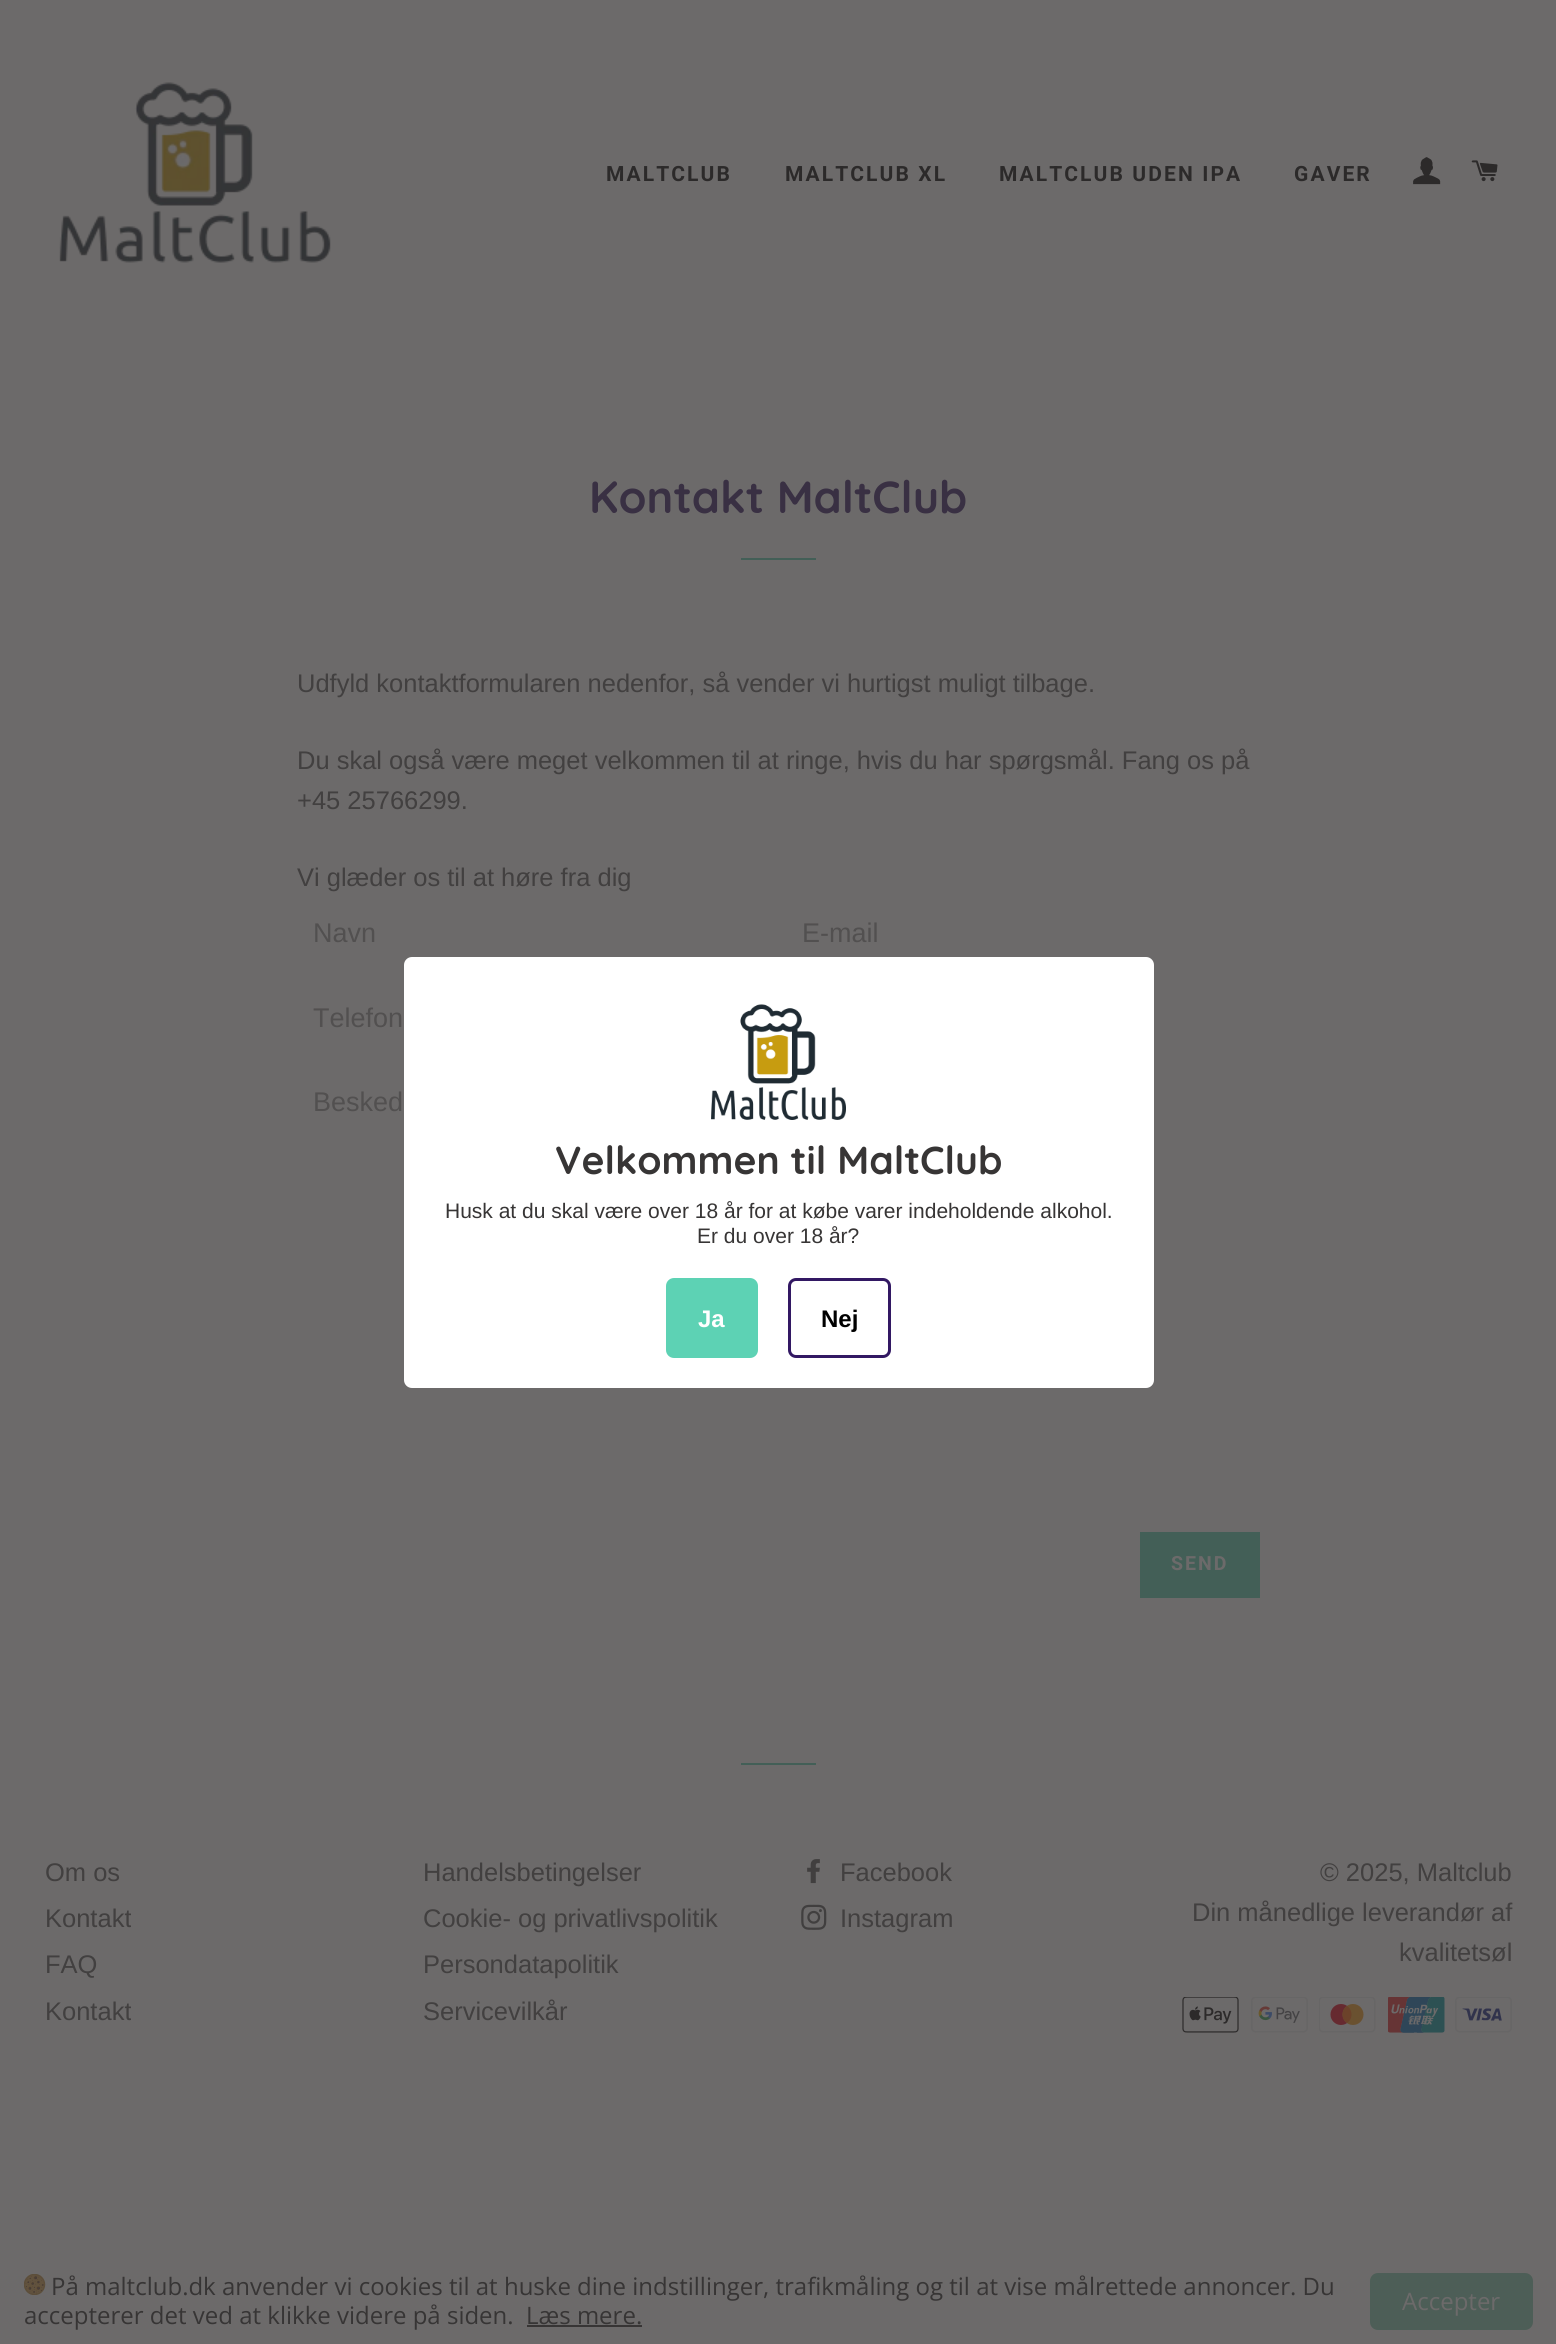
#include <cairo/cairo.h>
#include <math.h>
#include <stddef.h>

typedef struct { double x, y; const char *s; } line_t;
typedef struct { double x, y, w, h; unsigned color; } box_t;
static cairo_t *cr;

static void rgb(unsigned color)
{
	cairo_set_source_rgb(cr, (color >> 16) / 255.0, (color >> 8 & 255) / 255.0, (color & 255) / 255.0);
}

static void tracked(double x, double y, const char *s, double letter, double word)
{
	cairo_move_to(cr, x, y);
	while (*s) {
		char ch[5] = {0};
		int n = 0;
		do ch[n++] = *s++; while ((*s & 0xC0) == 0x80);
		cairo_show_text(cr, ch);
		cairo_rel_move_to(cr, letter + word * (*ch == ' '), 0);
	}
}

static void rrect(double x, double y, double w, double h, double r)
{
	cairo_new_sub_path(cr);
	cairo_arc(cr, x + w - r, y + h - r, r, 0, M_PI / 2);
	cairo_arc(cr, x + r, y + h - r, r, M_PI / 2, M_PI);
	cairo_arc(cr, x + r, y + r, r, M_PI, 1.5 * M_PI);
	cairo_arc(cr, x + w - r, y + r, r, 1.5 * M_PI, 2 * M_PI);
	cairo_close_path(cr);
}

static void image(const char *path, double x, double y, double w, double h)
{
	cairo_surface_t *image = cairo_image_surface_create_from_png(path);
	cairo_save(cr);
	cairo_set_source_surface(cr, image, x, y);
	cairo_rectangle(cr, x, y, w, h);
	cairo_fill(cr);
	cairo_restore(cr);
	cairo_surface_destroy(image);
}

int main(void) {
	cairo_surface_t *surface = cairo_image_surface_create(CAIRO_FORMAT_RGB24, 1556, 2344);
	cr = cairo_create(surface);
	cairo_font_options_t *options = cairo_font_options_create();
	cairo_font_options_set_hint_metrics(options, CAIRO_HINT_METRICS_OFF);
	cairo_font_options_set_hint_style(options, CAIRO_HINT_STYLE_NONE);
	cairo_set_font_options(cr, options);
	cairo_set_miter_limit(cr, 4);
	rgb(0x6c6a6a);
	cairo_paint(cr);
	image("img/1.png", 59, 82, 272, 181);
	image("img/2.png", 1413, 157, 28, 28);
	image("img/3.png", 1471, 160, 27, 22);
	{
		static const box_t items[] = {
			{741, 558, 75, 2, 0x435f57},
			{1140, 1532, 120, 66, 0x435f57},
			{741, 1763, 75, 2, 0x435f57},
		};
		for (size_t i = 0; i < sizeof items / sizeof *items; i++) {
			rgb(items[i].color);
			cairo_rectangle(cr, items[i].x, items[i].y, items[i].w, items[i].h);
			cairo_fill(cr);
		}
	}
	image("img/4.png", 807, 1859, 13, 25);
	image("img/5.png", 801, 1904, 26, 26);
	image("img/6.png", 1182, 1997, 57, 36);
	image("img/7.png", 1251, 1997, 57, 36);
	image("img/8.png", 1319, 1997, 57, 36);
	image("img/9.png", 1388, 1997, 57, 36);
	image("img/10.png", 1455, 1997, 57, 36);
	rgb(0xffffff);
	rrect(404, 957, 750, 431, 8);
	cairo_fill(cr);
	image("img/11.png", 711, 1004, 135, 116);
	rgb(0x5dd2b4);
	rrect(667.5, 1279.5, 89, 77, 6.5);
	cairo_fill_preserve(cr);
	cairo_set_line_width(cr, 3);
	cairo_stroke(cr);
	rrect(789.5, 1279.5, 100, 77, 6.5);
	rgb(0x321863);
	cairo_stroke(cr);
	image("img/12.png", 24, 2274, 22, 21);
	rgb(0x373535);
	cairo_rectangle(cr, 527, 2325, 115, 2);
	cairo_fill(cr);
	rgb(0x4d5e57);
	rrect(1370, 2273, 163, 57, 8);
	cairo_fill(cr);
	cairo_select_font_face(cr, "Roboto", CAIRO_FONT_SLANT_NORMAL, CAIRO_FONT_WEIGHT_BOLD);
	cairo_set_font_size(cr, 21);
	rgb(0x2c2a2a);
	{
		static const line_t items[] = {
			{606, 181, "MALTCLUB"},
			{785, 181, "MALTCLUB XL"},
			{999, 181, "MALTCLUB UDEN IPA"},
			{1294, 181, "GAVER"},
		};
		for (size_t i = 0; i < sizeof items / sizeof *items; i++) {
			tracked(items[i].x, items[i].y, items[i].s, 2.1, 0);
		}
	}
	cairo_select_font_face(cr, "Quicksand", CAIRO_FONT_SLANT_NORMAL, CAIRO_FONT_WEIGHT_BOLD);
	cairo_set_font_size(cr, 45);
	rgb(0x393043);
	cairo_move_to(cr, 589, 513);
	cairo_show_text(cr, "Kontakt MaltClub");
	cairo_select_font_face(cr, "Liberation Sans", CAIRO_FONT_SLANT_NORMAL, CAIRO_FONT_WEIGHT_NORMAL);
	cairo_set_font_size(cr, 25.5);
	rgb(0x424040);
	{
		static const line_t items[] = {
			{297, 692, "Udfyld kontaktformularen nedenfor, så vender vi hurtigst muligt tilbage."},
			{297, 769, "Du skal også være meget velkommen til at ringe, hvis du har spørgsmål. Fang os på"},
			{297, 809, "+45 25766299."},
			{297, 886, "Vi glæder os til at høre fra dig"},
		};
		for (size_t i = 0; i < sizeof items / sizeof *items; i++) {
			cairo_move_to(cr, items[i].x, items[i].y);
			cairo_show_text(cr, items[i].s);
		}
	}
	cairo_set_font_size(cr, 27);
	rgb(0x525050);
	{
		static const line_t items[] = {
			{313, 942, "Navn"},
			{802, 942, "E-mail"},
			{313, 1027, "Telefon"},
			{313, 1111, "Besked"},
		};
		for (size_t i = 0; i < sizeof items / sizeof *items; i++) {
			cairo_move_to(cr, items[i].x, items[i].y);
			cairo_show_text(cr, items[i].s);
		}
	}
	cairo_select_font_face(cr, "Roboto", CAIRO_FONT_SLANT_NORMAL, CAIRO_FONT_WEIGHT_BOLD);
	cairo_set_font_size(cr, 19.5);
	rgb(0x6c6a6a);
	tracked(1171, 1570, "SEND", 2, 0);
	cairo_select_font_face(cr, "Liberation Sans", CAIRO_FONT_SLANT_NORMAL, CAIRO_FONT_WEIGHT_NORMAL);
	cairo_set_font_size(cr, 25.5);
	rgb(0x424040);
	{
		static const line_t items[] = {
			{45, 1881, "Om os"},
			{45, 1927, "Kontakt"},
			{45, 1973, "FAQ"},
			{45, 2020, "Kontakt"},
			{423, 1881, "Handelsbetingelser"},
			{423, 1927, "Cookie- og privatlivspolitik"},
			{423, 1973, "Persondatapolitik"},
			{423, 2020, "Servicevilkår"},
			{840, 1881, "Facebook"},
			{840, 1927, "Instagram"},
			{1320, 1881, "© 2025, Maltclub"},
			{1192, 1921, "Din månedlige leverandør af"},
			{1399, 1961, "kvalitetsøl"},
		};
		for (size_t i = 0; i < sizeof items / sizeof *items; i++) {
			cairo_move_to(cr, items[i].x, items[i].y);
			cairo_show_text(cr, items[i].s);
		}
	}
	cairo_select_font_face(cr, "Quicksand", CAIRO_FONT_SLANT_NORMAL, CAIRO_FONT_WEIGHT_BOLD);
	cairo_set_font_size(cr, 39);
	rgb(0x373535);
	cairo_move_to(cr, 555, 1174);
	cairo_show_text(cr, "Velkommen til MaltClub");
	cairo_select_font_face(cr, "Liberation Sans", CAIRO_FONT_SLANT_NORMAL, CAIRO_FONT_WEIGHT_NORMAL);
	cairo_set_font_size(cr, 21);
	cairo_move_to(cr, 445, 1218);
	cairo_show_text(cr, "Husk at du skal være over 18 år for at købe varer indeholdende alkohol.");
	cairo_move_to(cr, 697, 1243);
	cairo_show_text(cr, "Er du over 18 år?");
	cairo_select_font_face(cr, "Liberation Sans", CAIRO_FONT_SLANT_NORMAL, CAIRO_FONT_WEIGHT_BOLD);
	cairo_set_font_size(cr, 24);
	rgb(0xffffff);
	cairo_move_to(cr, 698, 1327);
	cairo_show_text(cr, "Ja");
	rgb(0x000000);
	cairo_move_to(cr, 821, 1327);
	cairo_show_text(cr, "Nej");
	cairo_select_font_face(cr, "Open Sans", CAIRO_FONT_SLANT_NORMAL, CAIRO_FONT_WEIGHT_NORMAL);
	rgb(0x373535);
	{
		static const line_t items[] = {
			{51, 2295, "På maltclub.dk anvender vi cookies til at huske dine indstillinger, trafikmåling og til at vise målrettede annoncer. Du"},
			{24, 2324, "accepterer det ved at klikke videre på siden."},
			{526, 2324, "Læs mere."},
		};
		for (size_t i = 0; i < sizeof items / sizeof *items; i++) {
			cairo_move_to(cr, items[i].x, items[i].y);
			cairo_show_text(cr, items[i].s);
		}
	}
	rgb(0x6c6a6a);
	cairo_move_to(cr, 1402, 2310);
	cairo_show_text(cr, "Accepter");
	cairo_surface_write_to_png(surface, "page.png");
	cairo_font_options_destroy(options);
	cairo_destroy(cr);
	cairo_surface_destroy(surface);
	return 0;
}
